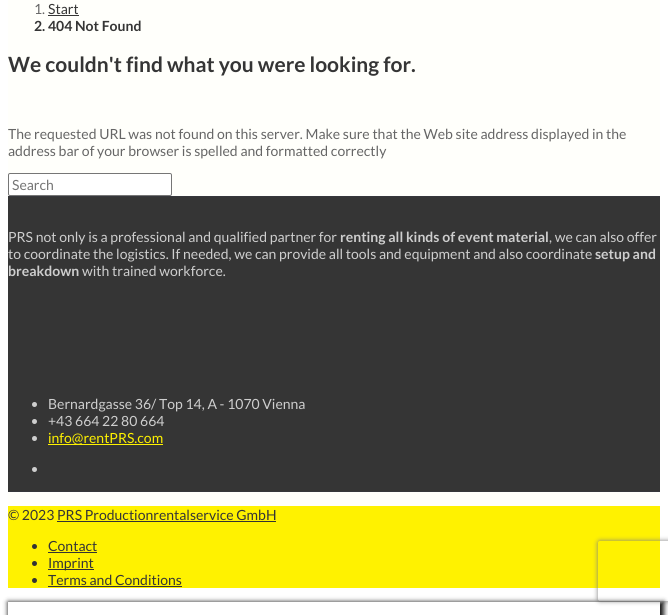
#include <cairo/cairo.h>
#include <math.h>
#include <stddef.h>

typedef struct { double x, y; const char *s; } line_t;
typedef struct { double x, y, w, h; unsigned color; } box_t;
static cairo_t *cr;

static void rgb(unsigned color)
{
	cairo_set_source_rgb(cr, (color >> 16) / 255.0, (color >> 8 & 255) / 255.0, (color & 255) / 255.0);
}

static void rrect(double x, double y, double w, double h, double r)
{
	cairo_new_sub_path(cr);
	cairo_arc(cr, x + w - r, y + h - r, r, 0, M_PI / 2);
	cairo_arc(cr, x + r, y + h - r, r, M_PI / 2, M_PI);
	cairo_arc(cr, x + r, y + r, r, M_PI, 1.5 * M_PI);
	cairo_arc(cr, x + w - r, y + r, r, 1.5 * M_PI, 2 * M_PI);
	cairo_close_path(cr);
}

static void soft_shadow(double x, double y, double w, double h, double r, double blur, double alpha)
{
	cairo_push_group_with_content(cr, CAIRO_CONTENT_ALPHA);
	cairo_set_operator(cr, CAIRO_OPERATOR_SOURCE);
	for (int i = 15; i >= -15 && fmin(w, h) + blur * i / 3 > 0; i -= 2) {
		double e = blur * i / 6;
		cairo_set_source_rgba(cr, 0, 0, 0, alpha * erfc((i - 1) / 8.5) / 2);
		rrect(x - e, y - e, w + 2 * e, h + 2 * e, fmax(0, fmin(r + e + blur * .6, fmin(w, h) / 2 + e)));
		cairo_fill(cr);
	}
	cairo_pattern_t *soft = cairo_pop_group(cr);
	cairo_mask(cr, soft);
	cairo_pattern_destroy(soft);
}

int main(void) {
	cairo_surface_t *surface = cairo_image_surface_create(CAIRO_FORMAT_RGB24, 668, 615);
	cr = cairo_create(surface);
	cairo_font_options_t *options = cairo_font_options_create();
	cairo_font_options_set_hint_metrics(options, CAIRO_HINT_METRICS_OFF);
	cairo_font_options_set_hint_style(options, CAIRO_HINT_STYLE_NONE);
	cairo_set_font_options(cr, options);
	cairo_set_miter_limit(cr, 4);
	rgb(0xffffff);
	cairo_paint(cr);
	rgb(0xfffffb);
	cairo_rectangle(cr, 8, 0, 652, 506);
	cairo_fill(cr);
	rgb(0x353535);
	cairo_rectangle(cr, 48, 15, 31, 1);
	cairo_fill(cr);
	rgb(0xffffff);
	rrect(8.5, 173.5, 163, 22, 1.5);
	cairo_fill_preserve(cr);
	rgb(0x767676);
	cairo_set_line_width(cr, 1);
	cairo_stroke(cr);
	{
		static const box_t items[] = {
			{8, 197, 652, 294, 0x353535},
			{8, 196, 652, 1, 0x36373c},
			{8, 491, 652, 1, 0x36373c},
		};
		for (size_t i = 0; i < sizeof items / sizeof *items; i++) {
			rgb(items[i].color);
			cairo_rectangle(cr, items[i].x, items[i].y, items[i].w, items[i].h);
			cairo_fill(cr);
		}
	}
	rgb(0xcecece);
	cairo_arc(cr, 34.5, 404.5, 2.5, 0, 2 * M_PI);
	cairo_fill(cr);
	cairo_arc(cr, 34.5, 421.5, 2.5, 0, 2 * M_PI);
	cairo_fill(cr);
	cairo_arc(cr, 34.5, 438.5, 2.5, 0, 2 * M_PI);
	cairo_fill(cr);
	rgb(0xfff200);
	cairo_rectangle(cr, 48, 444, 115, 1);
	cairo_fill(cr);
	rgb(0xcecece);
	cairo_arc(cr, 34.5, 469.5, 2.5, 0, 2 * M_PI);
	cairo_fill(cr);
	rgb(0xfff200);
	cairo_rectangle(cr, 8, 506, 652, 82);
	cairo_fill(cr);
	rgb(0x333333);
	cairo_rectangle(cr, 57, 521, 219, 1);
	cairo_fill(cr);
	cairo_arc(cr, 34.5, 546.5, 2.5, 0, 2 * M_PI);
	cairo_fill(cr);
	cairo_rectangle(cr, 48, 552, 49, 1);
	cairo_fill(cr);
	cairo_arc(cr, 34.5, 563.5, 2.5, 0, 2 * M_PI);
	cairo_fill(cr);
	cairo_rectangle(cr, 48, 569, 46, 1);
	cairo_fill(cr);
	cairo_arc(cr, 34.5, 580.5, 2.5, 0, 2 * M_PI);
	cairo_fill(cr);
	cairo_rectangle(cr, 48, 586, 134, 1);
	cairo_fill(cr);
	cairo_save(cr);
	cairo_set_fill_rule(cr, CAIRO_FILL_RULE_EVEN_ODD);
	cairo_new_path(cr);
	cairo_move_to(cr, 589, 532);
	cairo_line_to(cr, 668, 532);
	cairo_line_to(cr, 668, 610);
	cairo_line_to(cr, 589, 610);
	cairo_close_path(cr);
	cairo_move_to(cr, 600, 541);
	cairo_line_to(cr, 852, 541);
	cairo_curve_to(cr, 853, 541, 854, 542, 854, 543);
	cairo_line_to(cr, 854, 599);
	cairo_curve_to(cr, 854, 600, 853, 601, 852, 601);
	cairo_line_to(cr, 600, 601);
	cairo_curve_to(cr, 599, 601, 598, 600, 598, 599);
	cairo_line_to(cr, 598, 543);
	cairo_curve_to(cr, 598, 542, 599, 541, 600, 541);
	cairo_close_path(cr);
	cairo_clip(cr);
	rgb(0x808080);
	soft_shadow(598, 541, 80, 60, 2, 2.5, 1);
	cairo_restore(cr);
	cairo_save(cr);
	cairo_set_fill_rule(cr, CAIRO_FILL_RULE_EVEN_ODD);
	cairo_new_path(cr);
	cairo_move_to(cr, 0, 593);
	cairo_line_to(cr, 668, 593);
	cairo_line_to(cr, 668, 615);
	cairo_line_to(cr, 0, 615);
	cairo_close_path(cr);
	cairo_move_to(cr, 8, 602);
	cairo_line_to(cr, 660, 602);
	cairo_line_to(cr, 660, 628);
	cairo_line_to(cr, 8, 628);
	cairo_close_path(cr);
	cairo_clip(cr);
	rgb(0x161616);
	soft_shadow(8, 602, 656, 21, 0, 2.5, 1);
	cairo_restore(cr);
	cairo_select_font_face(cr, "Lato", CAIRO_FONT_SLANT_NORMAL, CAIRO_FONT_WEIGHT_NORMAL);
	cairo_set_font_size(cr, 14);
	rgb(0x666666);
	cairo_move_to(cr, 34, 14);
	cairo_show_text(cr, "1.");
	rgb(0x353535);
	cairo_move_to(cr, 48, 14);
	cairo_show_text(cr, "Start");
	cairo_select_font_face(cr, "Lato", CAIRO_FONT_SLANT_NORMAL, CAIRO_FONT_WEIGHT_BOLD);
	cairo_move_to(cr, 34, 31);
	cairo_show_text(cr, "2. 404 Not Found");
	cairo_set_font_size(cr, 21);
	cairo_move_to(cr, 8, 72);
	cairo_show_text(cr, "We couldn't find what you were looking for.");
	cairo_select_font_face(cr, "Lato", CAIRO_FONT_SLANT_NORMAL, CAIRO_FONT_WEIGHT_NORMAL);
	cairo_set_font_size(cr, 14);
	rgb(0x666666);
	cairo_move_to(cr, 8, 139);
	cairo_show_text(cr, "The requested URL was not found on this server. Make sure that the Web site address displayed in the");
	cairo_move_to(cr, 8, 156);
	cairo_show_text(cr, "address bar of your browser is spelled and formatted correctly");
	rgb(0x757575);
	cairo_move_to(cr, 12, 190);
	cairo_show_text(cr, "Search");
	rgb(0xcecece);
	cairo_move_to(cr, 8, 242);
	cairo_show_text(cr, "PRS not only is a professional and qualified partner for");
	cairo_select_font_face(cr, "Lato", CAIRO_FONT_SLANT_NORMAL, CAIRO_FONT_WEIGHT_BOLD);
	cairo_move_to(cr, 340, 242);
	cairo_show_text(cr, "renting all kinds of event material");
	cairo_select_font_face(cr, "Lato", CAIRO_FONT_SLANT_NORMAL, CAIRO_FONT_WEIGHT_NORMAL);
	cairo_move_to(cr, 549, 242);
	cairo_show_text(cr, ", we can also offer");
	cairo_move_to(cr, 8, 259);
	cairo_show_text(cr, "to coordinate the logistics. If needed, we can provide all tools and equipment and also coordinate");
	cairo_select_font_face(cr, "Lato", CAIRO_FONT_SLANT_NORMAL, CAIRO_FONT_WEIGHT_BOLD);
	cairo_move_to(cr, 595, 259);
	cairo_show_text(cr, "setup and");
	cairo_move_to(cr, 8, 276);
	cairo_show_text(cr, "breakdown");
	cairo_select_font_face(cr, "Lato", CAIRO_FONT_SLANT_NORMAL, CAIRO_FONT_WEIGHT_NORMAL);
	{
		static const line_t items[] = {
			{82, 276, "with trained workforce."},
			{48, 409, "Bernardgasse 36/ Top 14, A - 1070 Vienna"},
			{48, 426, "+43 664 22 80 664"},
		};
		for (size_t i = 0; i < sizeof items / sizeof *items; i++) {
			cairo_move_to(cr, items[i].x, items[i].y);
			cairo_show_text(cr, items[i].s);
		}
	}
	rgb(0xfff200);
	cairo_move_to(cr, 48, 443);
	cairo_show_text(cr, "info@rentPRS.com");
	rgb(0x353535);
	{
		static const line_t items[] = {
			{8, 520, "© 2023 PRS Productionrentalservice GmbH"},
			{48, 551, "Contact"},
			{48, 568, "Imprint"},
			{48, 585, "Terms and Conditions"},
		};
		for (size_t i = 0; i < sizeof items / sizeof *items; i++) {
			cairo_move_to(cr, items[i].x, items[i].y);
			cairo_show_text(cr, items[i].s);
		}
	}
	cairo_surface_write_to_png(surface, "page.png");
	cairo_font_options_destroy(options);
	cairo_destroy(cr);
	cairo_surface_destroy(surface);
	return 0;
}
